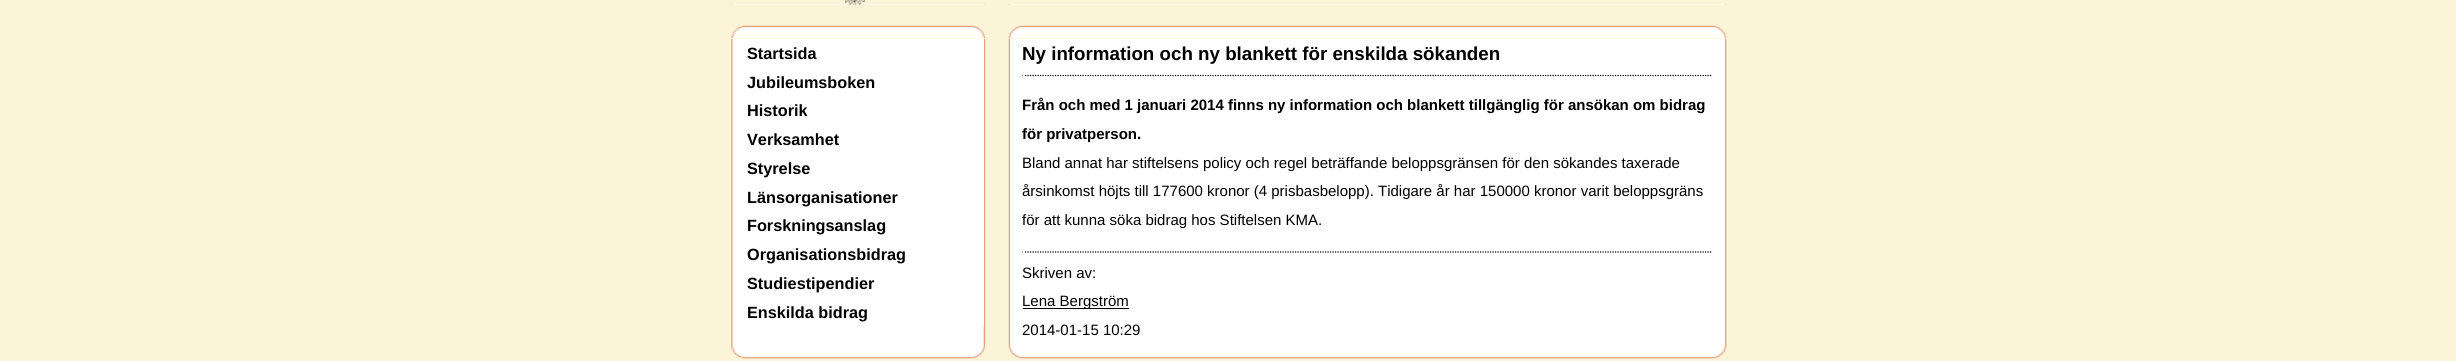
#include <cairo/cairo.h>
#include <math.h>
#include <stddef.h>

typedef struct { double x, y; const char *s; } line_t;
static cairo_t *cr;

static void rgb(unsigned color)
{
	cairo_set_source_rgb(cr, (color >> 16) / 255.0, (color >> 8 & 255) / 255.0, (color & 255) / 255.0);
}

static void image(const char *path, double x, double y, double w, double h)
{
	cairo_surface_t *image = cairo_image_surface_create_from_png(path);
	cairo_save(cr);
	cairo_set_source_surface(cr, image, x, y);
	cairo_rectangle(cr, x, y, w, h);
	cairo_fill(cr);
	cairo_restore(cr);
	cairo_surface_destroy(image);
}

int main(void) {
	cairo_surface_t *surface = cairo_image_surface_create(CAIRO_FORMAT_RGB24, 2456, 361);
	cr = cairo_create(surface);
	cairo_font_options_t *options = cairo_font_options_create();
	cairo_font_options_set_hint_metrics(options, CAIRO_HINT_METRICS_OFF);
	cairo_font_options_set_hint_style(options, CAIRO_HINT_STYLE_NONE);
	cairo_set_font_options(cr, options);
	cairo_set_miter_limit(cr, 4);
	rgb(0xfcf4d8);
	cairo_paint(cr);
	image("img/1.png", 844, 0, 22, 5);
	image("img/3.png", 731, 4, 996, 341);
	image("img/2.png", 731, 4, 996, 1);
	rgb(0xfcf4d8);
	cairo_rectangle(cr, 731, 5, 996, 34);
	cairo_fill(cr);
	image("img/4.png", 731, 25, 996, 14);
	rgb(0xffffff);
	cairo_rectangle(cr, 983, 39, 1, 287);
	cairo_fill(cr);
	cairo_new_path(cr);
	cairo_move_to(cr, 1022.5, 75.5);
	cairo_line_to(cr, 1712.5, 75.5);
	rgb(0x000000);
	cairo_set_line_width(cr, 1.2);
	cairo_set_dash(cr, (double[]){1.25, 1.25}, 2, 0);
	cairo_stroke(cr);
	rgb(0xffffff);
	cairo_rectangle(cr, 1023, 74, 1, 3);
	cairo_fill(cr);
	cairo_new_path(cr);
	cairo_move_to(cr, 1022.5, 252);
	cairo_line_to(cr, 1712.5, 252);
	rgb(0x000000);
	cairo_stroke(cr);
	rgb(0xffffff);
	cairo_rectangle(cr, 1023, 250, 1, 3);
	cairo_fill(cr);
	rgb(0x000000);
	cairo_rectangle(cr, 1023, 308, 106, 1);
	cairo_fill(cr);
	image("img/5.png", 731, 345, 996, 14);
	cairo_select_font_face(cr, "Liberation Sans", CAIRO_FONT_SLANT_NORMAL, CAIRO_FONT_WEIGHT_BOLD);
	cairo_set_font_size(cr, 16.25);
	{
		static const line_t items[] = {
			{747, 59, "Startsida"},
			{747, 88, "Jubileumsboken"},
			{747, 116, "Historik"},
			{747, 145, "Verksamhet"},
			{747, 174, "Styrelse"},
			{747, 203, "Länsorganisationer"},
			{747, 231, "Forskningsanslag"},
			{747, 260, "Organisationsbidrag"},
			{747, 289, "Studiestipendier"},
			{747, 318, "Enskilda bidrag"},
		};
		for (size_t i = 0; i < sizeof items / sizeof *items; i++) {
			cairo_move_to(cr, items[i].x, items[i].y);
			cairo_show_text(cr, items[i].s);
		}
	}
	cairo_set_font_size(cr, 18.75);
	cairo_move_to(cr, 1022, 60);
	cairo_show_text(cr, "Ny information och ny blankett för enskilda sökanden");
	cairo_set_font_size(cr, 15);
	cairo_move_to(cr, 1022, 110);
	cairo_show_text(cr, "Från och med 1 januari 2014 finns ny information och blankett tillgänglig för ansökan om bidrag");
	cairo_move_to(cr, 1022, 139);
	cairo_show_text(cr, "för privatperson.");
	cairo_select_font_face(cr, "Liberation Sans", CAIRO_FONT_SLANT_NORMAL, CAIRO_FONT_WEIGHT_NORMAL);
	{
		static const line_t items[] = {
			{1022, 168, "Bland annat har stiftelsens policy och regel beträffande beloppsgränsen för den sökandes taxerade"},
			{1022, 196, "årsinkomst höjts till 177600 kronor (4 prisbasbelopp). Tidigare år har 150000 kronor varit beloppsgräns"},
			{1022, 225, "för att kunna söka bidrag hos Stiftelsen KMA."},
			{1022, 278, "Skriven av:"},
			{1022, 306, "Lena Bergström"},
			{1022, 335, "2014-01-15 10:29"},
		};
		for (size_t i = 0; i < sizeof items / sizeof *items; i++) {
			cairo_move_to(cr, items[i].x, items[i].y);
			cairo_show_text(cr, items[i].s);
		}
	}
	cairo_surface_write_to_png(surface, "page.png");
	cairo_font_options_destroy(options);
	cairo_destroy(cr);
	cairo_surface_destroy(surface);
	return 0;
}
